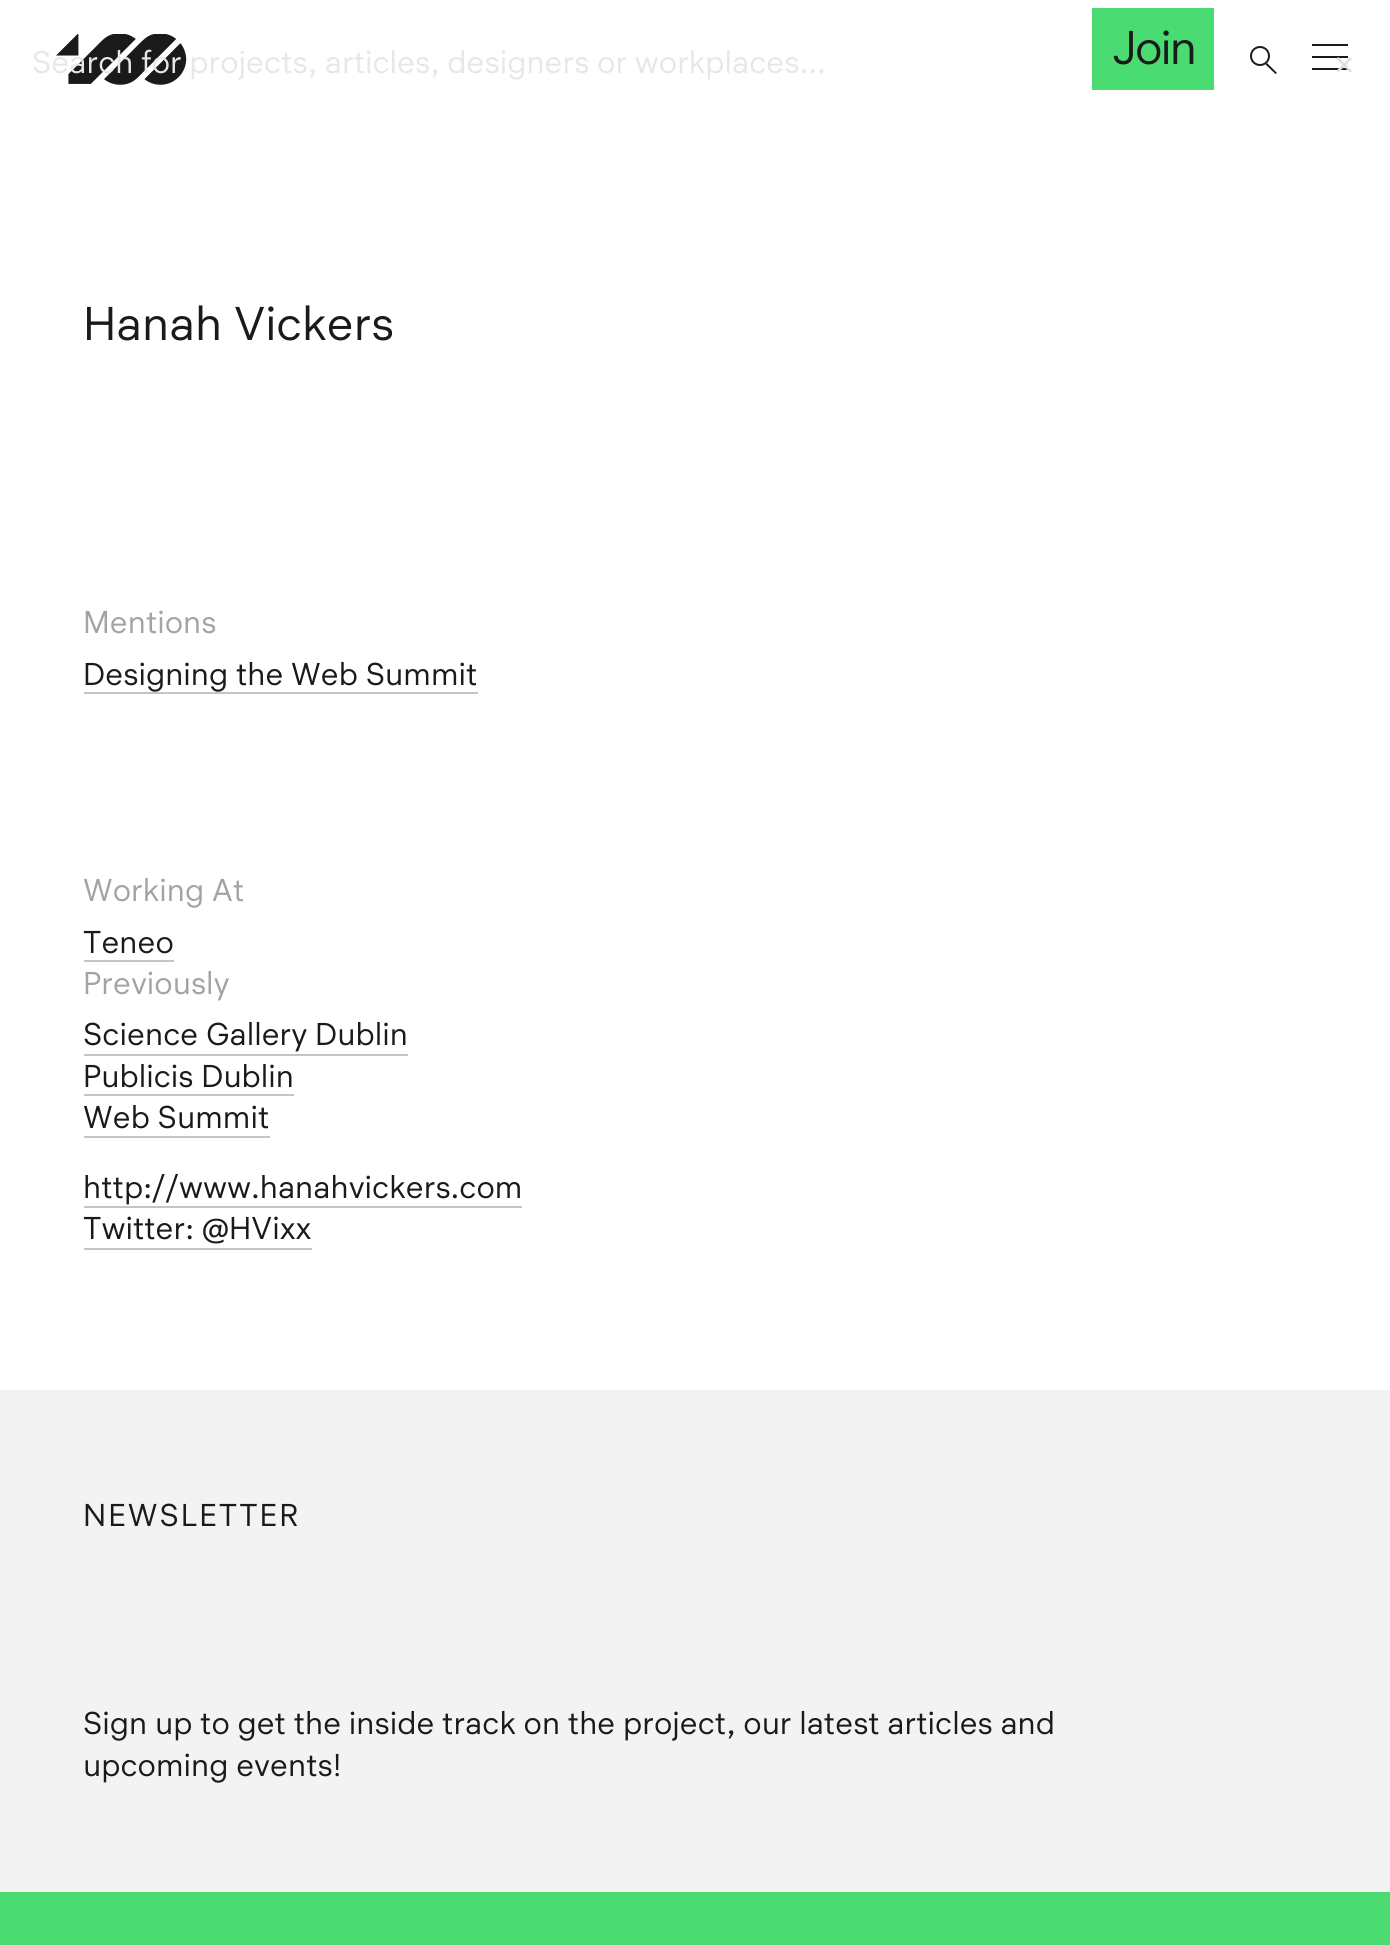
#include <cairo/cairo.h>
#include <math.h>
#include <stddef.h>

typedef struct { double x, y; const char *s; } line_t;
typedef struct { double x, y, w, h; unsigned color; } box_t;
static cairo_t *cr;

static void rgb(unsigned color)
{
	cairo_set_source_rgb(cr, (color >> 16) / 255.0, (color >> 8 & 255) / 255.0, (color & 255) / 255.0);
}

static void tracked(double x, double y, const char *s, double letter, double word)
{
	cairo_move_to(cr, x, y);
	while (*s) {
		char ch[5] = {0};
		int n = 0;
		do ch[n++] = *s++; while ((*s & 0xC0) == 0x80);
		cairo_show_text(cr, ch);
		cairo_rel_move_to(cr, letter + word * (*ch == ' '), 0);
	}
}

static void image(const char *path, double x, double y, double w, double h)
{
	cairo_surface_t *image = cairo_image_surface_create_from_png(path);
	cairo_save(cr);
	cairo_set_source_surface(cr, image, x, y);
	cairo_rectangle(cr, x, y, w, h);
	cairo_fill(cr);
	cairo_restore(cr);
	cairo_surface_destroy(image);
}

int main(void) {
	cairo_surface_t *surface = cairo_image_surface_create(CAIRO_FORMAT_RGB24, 1390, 1945);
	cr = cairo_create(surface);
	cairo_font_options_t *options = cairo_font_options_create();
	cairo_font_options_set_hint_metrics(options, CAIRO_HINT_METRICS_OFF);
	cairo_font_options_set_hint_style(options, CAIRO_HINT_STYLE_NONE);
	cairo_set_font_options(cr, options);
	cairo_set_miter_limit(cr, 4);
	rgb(0xffffff);
	cairo_paint(cr);
	rgb(0x4adb73);
	cairo_rectangle(cr, 1092, 8, 122, 82);
	cairo_fill(cr);
	cairo_arc(cr, 1260, 56, 9, 0, 2 * M_PI);
	rgb(0x1a1a1a);
	cairo_stroke(cr);
	cairo_new_path(cr);
	cairo_move_to(cr, 1265.5, 64.5);
	cairo_line_to(cr, 1267, 63);
	cairo_line_to(cr, 1277, 73);
	cairo_line_to(cr, 1275.5, 74);
	cairo_close_path(cr);
	cairo_fill(cr);
	{
		static const box_t items[] = {
			{1312, 44, 36, 2, 0x1a1a1a},
			{1312, 56, 36, 2, 0x1a1a1a},
			{1312, 68, 36, 2, 0x1a1a1a},
		};
		for (size_t i = 0; i < sizeof items / sizeof *items; i++) {
			rgb(items[i].color);
			cairo_rectangle(cr, items[i].x, items[i].y, items[i].w, items[i].h);
			cairo_fill(cr);
		}
	}
	image("img/1.png", 56, 34, 131, 51);
	{
		static const box_t items[] = {
			{84, 692, 394, 2, 0xc4c4c4},
			{84, 960, 90, 2, 0xc4c4c4},
			{84, 1054, 324, 2, 0xc4c4c4},
			{84, 1094, 210, 2, 0xc4c4c4},
			{84, 1136, 186, 2, 0xc4c4c4},
			{84, 1206, 438, 2, 0xc4c4c4},
			{84, 1248, 228, 2, 0xc4c4c4},
			{0, 1390, 1390, 502, 0xf3f3f3},
			{0, 1892, 1390, 53, 0x4adb73},
		};
		for (size_t i = 0; i < sizeof items / sizeof *items; i++) {
			rgb(items[i].color);
			cairo_rectangle(cr, items[i].x, items[i].y, items[i].w, items[i].h);
			cairo_fill(cr);
		}
	}
	cairo_select_font_face(cr, "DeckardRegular", CAIRO_FONT_SLANT_NORMAL, CAIRO_FONT_WEIGHT_NORMAL);
	cairo_set_font_size(cr, 48);
	rgb(0x1a1a1a);
	tracked(1112, 64, "Join", -2, 0);
	cairo_set_font_size(cr, 32);
	rgb(0xe7e7e7);
	cairo_move_to(cr, 32, 73);
	cairo_show_text(cr, "Search for projects, articles, designers or workplaces...");
	cairo_set_font_size(cr, 38);
	rgb(0xdfdfdf);
	cairo_move_to(cr, 1333, 78);
	cairo_show_text(cr, "×");
	cairo_set_font_size(cr, 48);
	rgb(0x1a1a1a);
	cairo_move_to(cr, 83, 340);
	cairo_show_text(cr, "Hanah Vickers");
	cairo_set_font_size(cr, 32);
	rgb(0xa3a3a3);
	cairo_move_to(cr, 83, 633);
	cairo_show_text(cr, "Mentions");
	rgb(0x1a1a1a);
	cairo_move_to(cr, 83, 685);
	cairo_show_text(cr, "Designing the Web Summit");
	rgb(0xa3a3a3);
	cairo_move_to(cr, 83, 901);
	cairo_show_text(cr, "Working At");
	rgb(0x1a1a1a);
	cairo_move_to(cr, 83, 953);
	cairo_show_text(cr, "Teneo");
	rgb(0xa3a3a3);
	cairo_move_to(cr, 83, 994);
	cairo_show_text(cr, "Previously");
	rgb(0x1a1a1a);
	{
		static const line_t items[] = {
			{83, 1045, "Science Gallery Dublin"},
			{83, 1087, "Publicis Dublin"},
			{83, 1128, "Web Summit"},
			{83, 1198, "http://www.hanahvickers.com"},
			{83, 1239, "Twitter: @HVixx"},
		};
		for (size_t i = 0; i < sizeof items / sizeof *items; i++) {
			cairo_move_to(cr, items[i].x, items[i].y);
			cairo_show_text(cr, items[i].s);
		}
	}
	tracked(83, 1526, "NEWSLETTER", 2, 0);
	cairo_move_to(cr, 83, 1734);
	cairo_show_text(cr, "Sign up to get the inside track on the project, our latest articles and");
	cairo_move_to(cr, 83, 1776);
	cairo_show_text(cr, "upcoming events!");
	cairo_surface_write_to_png(surface, "page.png");
	cairo_font_options_destroy(options);
	cairo_destroy(cr);
	cairo_surface_destroy(surface);
	return 0;
}
